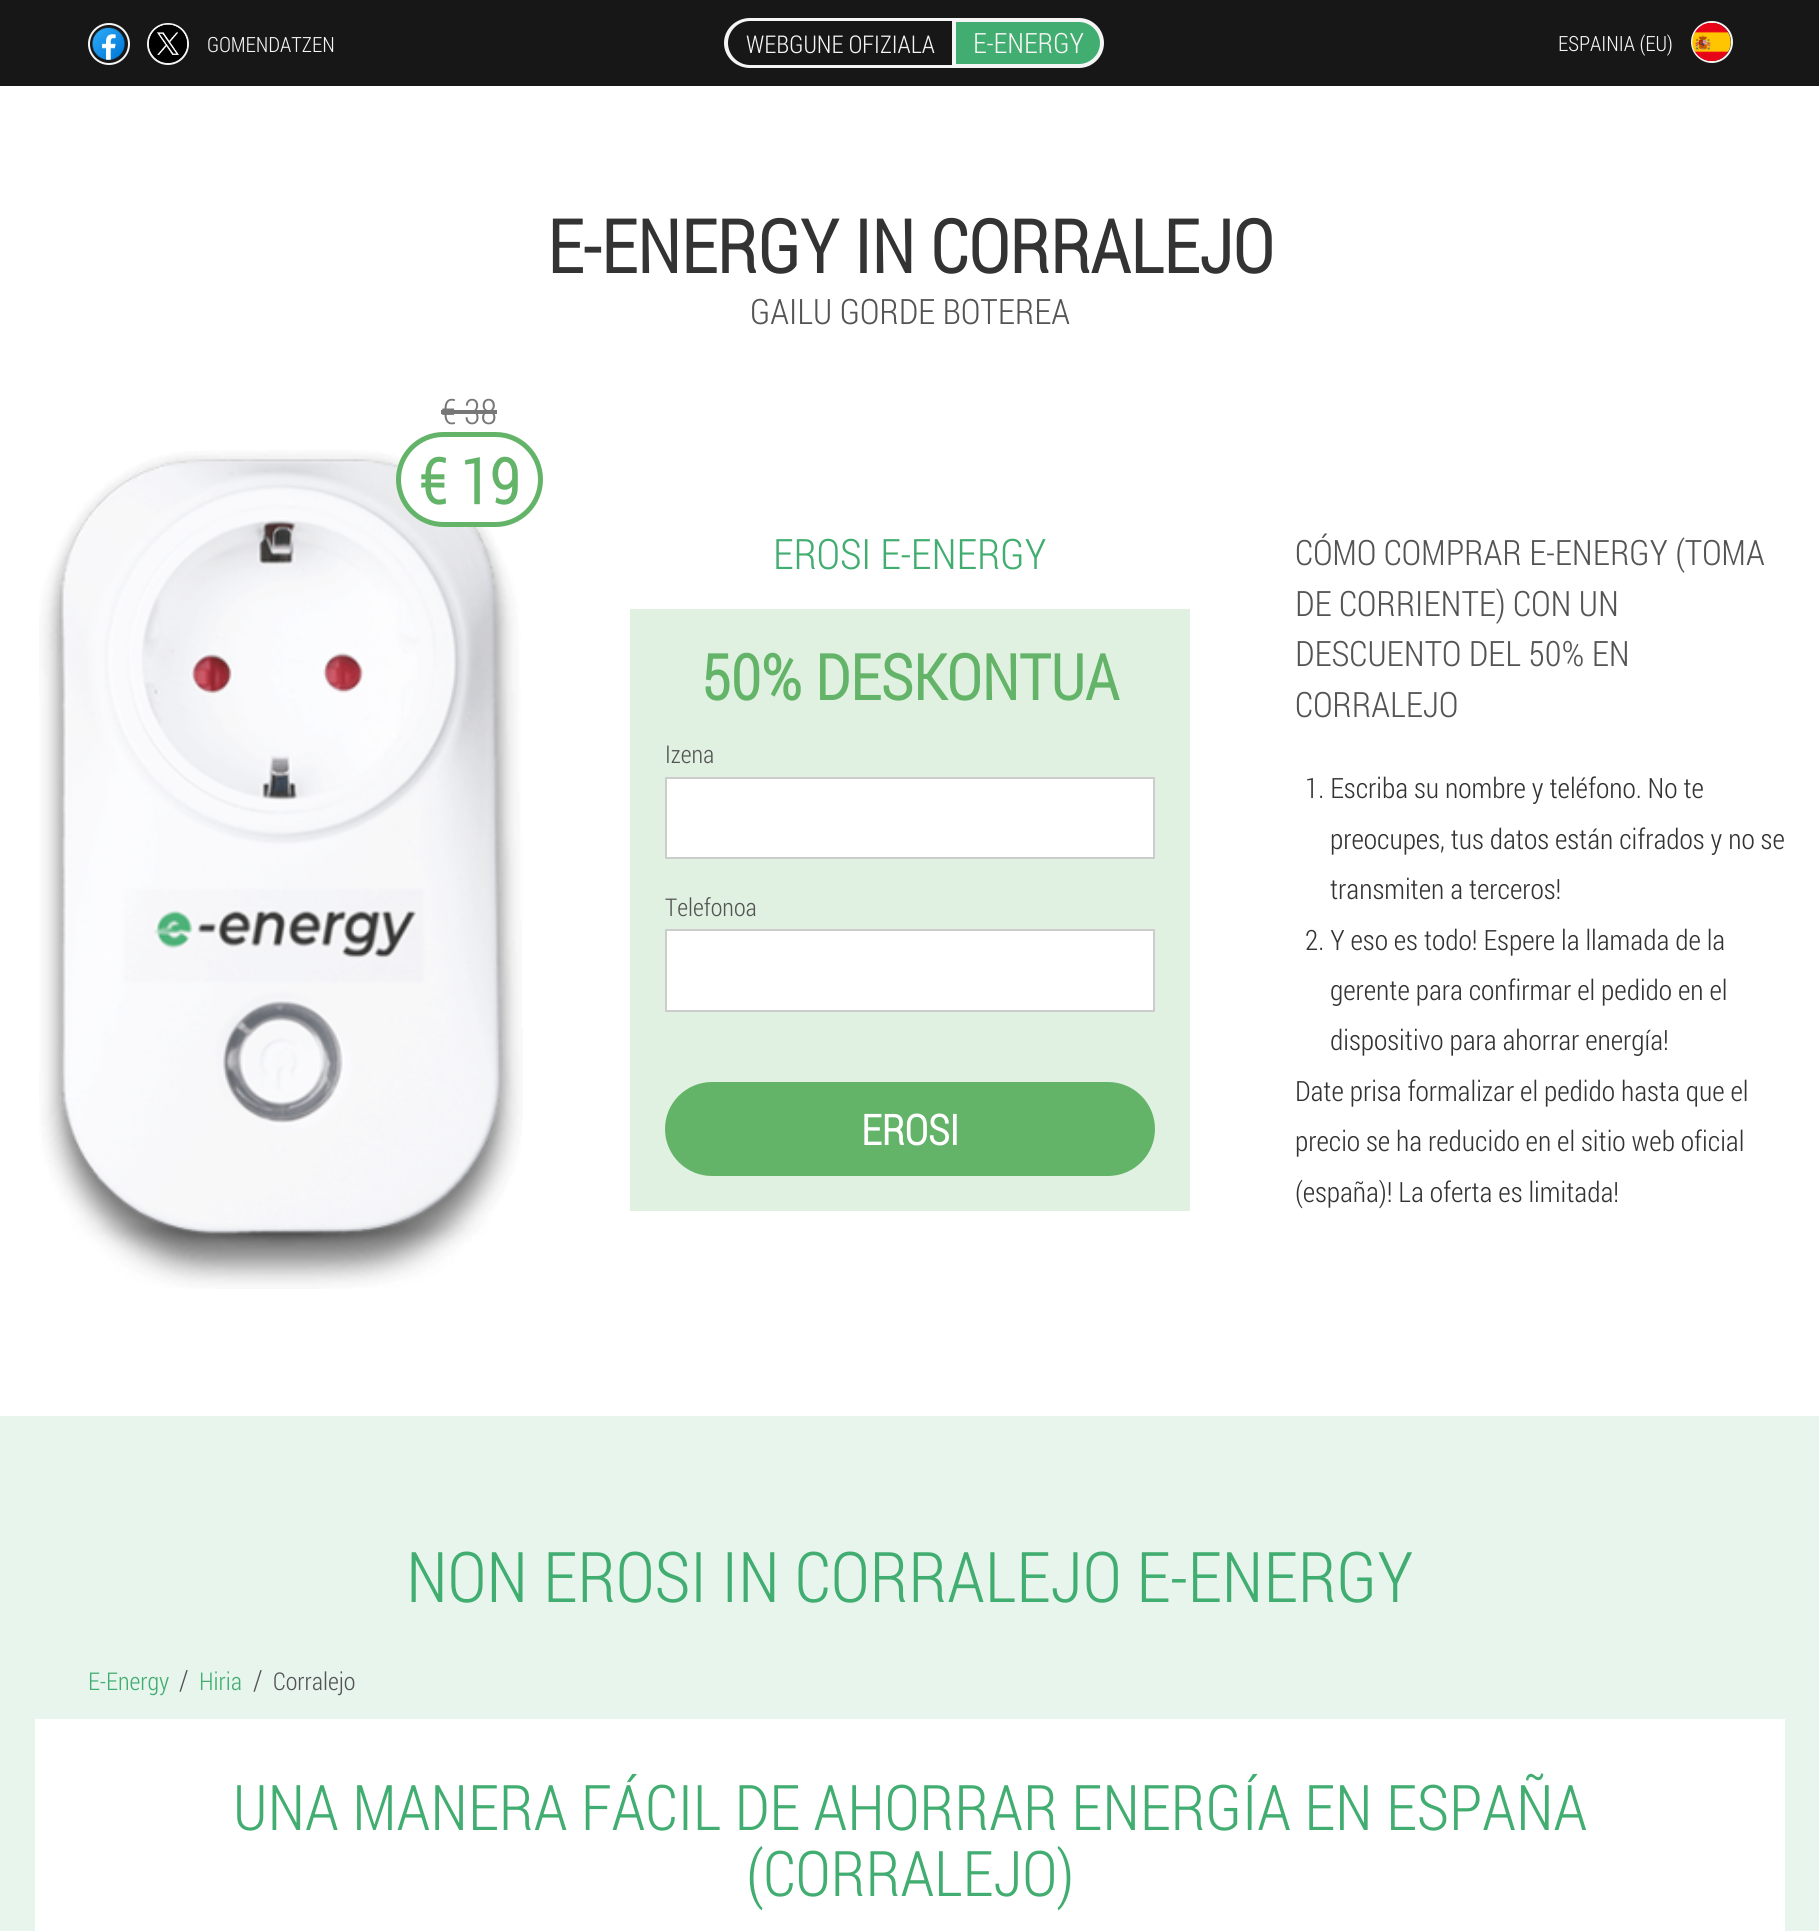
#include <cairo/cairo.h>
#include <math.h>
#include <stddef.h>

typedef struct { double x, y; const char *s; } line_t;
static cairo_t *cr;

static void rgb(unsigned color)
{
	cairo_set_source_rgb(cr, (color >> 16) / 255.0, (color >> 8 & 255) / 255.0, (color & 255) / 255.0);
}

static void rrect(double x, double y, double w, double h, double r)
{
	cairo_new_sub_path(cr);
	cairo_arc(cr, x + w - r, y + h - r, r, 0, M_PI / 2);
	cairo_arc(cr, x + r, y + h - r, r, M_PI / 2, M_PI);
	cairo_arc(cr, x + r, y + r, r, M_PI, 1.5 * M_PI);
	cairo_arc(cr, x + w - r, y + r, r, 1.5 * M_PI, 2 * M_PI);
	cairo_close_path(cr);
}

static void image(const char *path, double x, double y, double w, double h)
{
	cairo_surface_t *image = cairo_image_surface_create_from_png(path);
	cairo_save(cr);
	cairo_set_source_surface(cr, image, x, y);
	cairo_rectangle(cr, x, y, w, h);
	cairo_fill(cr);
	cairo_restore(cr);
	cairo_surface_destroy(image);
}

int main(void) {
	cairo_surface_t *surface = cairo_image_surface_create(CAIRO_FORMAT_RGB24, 1819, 1931);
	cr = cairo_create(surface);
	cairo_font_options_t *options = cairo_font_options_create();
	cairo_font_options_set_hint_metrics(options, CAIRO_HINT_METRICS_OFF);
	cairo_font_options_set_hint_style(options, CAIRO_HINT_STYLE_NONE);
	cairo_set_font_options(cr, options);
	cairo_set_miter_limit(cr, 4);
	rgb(0xe7f5ed);
	cairo_paint(cr);
	rgb(0x171717);
	cairo_rectangle(cr, 0, 0, 1819, 86);
	cairo_fill(cr);
	cairo_arc(cr, 109, 44, 20, 0, 2 * M_PI);
	rgb(0xf5f5f5);
	cairo_stroke(cr);
	image("img/1.png", 92, 27, 33, 33);
	cairo_arc(cr, 168, 44, 20, 0, 2 * M_PI);
	cairo_stroke(cr);
	image("img/2.png", 148, 24, 40, 39);
	cairo_set_fill_rule(cr, CAIRO_FILL_RULE_EVEN_ODD);
	cairo_new_path(cr);
	cairo_move_to(cr, 750, 18);
	cairo_line_to(cr, 952, 18);
	cairo_line_to(cr, 952, 68);
	cairo_line_to(cr, 750, 68);
	cairo_curve_to(cr, 736, 68, 724, 57, 724, 43);
	cairo_curve_to(cr, 724, 29, 736, 18, 750, 18);
	cairo_close_path(cr);
	cairo_move_to(cr, 750, 21);
	cairo_line_to(cr, 952, 21);
	cairo_line_to(cr, 952, 65);
	cairo_line_to(cr, 750, 65);
	cairo_curve_to(cr, 738, 65, 728, 55, 728, 43);
	cairo_curve_to(cr, 728, 31, 738, 21, 750, 21);
	cairo_close_path(cr);
	cairo_fill(cr);
	rgb(0x41ad70);
	cairo_new_path(cr);
	cairo_move_to(cr, 954, 20);
	cairo_line_to(cr, 1079, 20);
	cairo_curve_to(cr, 1091.5, 20, 1102, 30.5, 1102, 43);
	cairo_curve_to(cr, 1102, 55.5, 1091.5, 66, 1079, 66);
	cairo_line_to(cr, 954, 66);
	cairo_close_path(cr);
	cairo_fill_preserve(cr);
	rgb(0xf5f5f5);
	cairo_set_line_width(cr, 4);
	cairo_stroke(cr);
	cairo_arc(cr, 1712, 42, 20, 0, 2 * M_PI);
	cairo_set_line_width(cr, 2);
	cairo_stroke(cr);
	image("img/3.png", 1692, 22, 39, 40);
	rgb(0xffffff);
	cairo_rectangle(cr, 0, 86, 1819, 1330);
	cairo_fill(cr);
	image("img/4.png", 39, 450, 484, 839);
	rrect(398.5, 434.5, 142, 90, 45);
	cairo_fill_preserve(cr);
	rgb(0x63b468);
	cairo_set_line_width(cr, 5);
	cairo_stroke(cr);
	rgb(0x777777);
	cairo_rectangle(cr, 441, 410, 56, 4);
	cairo_fill(cr);
	rgb(0xe0f1e1);
	cairo_rectangle(cr, 630, 609, 560, 602);
	cairo_fill(cr);
	rgb(0xffffff);
	cairo_rectangle(cr, 666, 778, 488, 80);
	cairo_fill_preserve(cr);
	rgb(0xcccccc);
	cairo_set_line_width(cr, 2);
	cairo_stroke(cr);
	rgb(0xffffff);
	cairo_rectangle(cr, 666, 930, 488, 81);
	cairo_fill_preserve(cr);
	rgb(0xcccccc);
	cairo_stroke(cr);
	rgb(0x63b468);
	rrect(665, 1082, 490, 94, 47);
	cairo_fill(cr);
	rgb(0xffffff);
	cairo_rectangle(cr, 35, 1719, 1750, 212);
	cairo_fill(cr);
	cairo_select_font_face(cr, "Roboto Condensed Light", CAIRO_FONT_SLANT_NORMAL, CAIRO_FONT_WEIGHT_NORMAL);
	cairo_set_font_size(cr, 21);
	rgb(0xf5f5f5);
	cairo_move_to(cr, 207, 52);
	cairo_show_text(cr, "GOMENDATZEN");
	cairo_set_font_size(cr, 24.5);
	cairo_move_to(cr, 746, 53);
	cairo_show_text(cr, "WEBGUNE OFIZIALA");
	cairo_set_font_size(cr, 28);
	cairo_move_to(cr, 973, 53);
	cairo_show_text(cr, "E-ENERGY");
	cairo_set_font_size(cr, 21);
	cairo_move_to(cr, 1558, 51);
	cairo_show_text(cr, "ESPAINIA (EU)");
	cairo_select_font_face(cr, "Roboto Condensed", CAIRO_FONT_SLANT_NORMAL, CAIRO_FONT_WEIGHT_BOLD);
	cairo_set_font_size(cr, 73.5);
	rgb(0x333333);
	cairo_move_to(cr, 547, 273);
	cairo_show_text(cr, "E-ENERGY IN CORRALEJO");
	cairo_select_font_face(cr, "Roboto Condensed Light", CAIRO_FONT_SLANT_NORMAL, CAIRO_FONT_WEIGHT_NORMAL);
	cairo_set_font_size(cr, 35);
	rgb(0x545454);
	cairo_move_to(cr, 750, 324);
	cairo_show_text(cr, "GAILU GORDE BOTEREA");
	rgb(0x777777);
	cairo_move_to(cr, 441, 424);
	cairo_show_text(cr, "€ 38");
	cairo_select_font_face(cr, "Roboto Condensed", CAIRO_FONT_SLANT_NORMAL, CAIRO_FONT_WEIGHT_BOLD);
	cairo_set_font_size(cr, 63);
	rgb(0x63b468);
	cairo_move_to(cr, 419, 504);
	cairo_show_text(cr, "€ 19");
	cairo_select_font_face(cr, "Roboto Condensed Light", CAIRO_FONT_SLANT_NORMAL, CAIRO_FONT_WEIGHT_NORMAL);
	cairo_set_font_size(cr, 42);
	rgb(0x41ad70);
	cairo_move_to(cr, 773, 569);
	cairo_show_text(cr, "EROSI E-ENERGY");
	cairo_select_font_face(cr, "Roboto Condensed", CAIRO_FONT_SLANT_NORMAL, CAIRO_FONT_WEIGHT_BOLD);
	cairo_set_font_size(cr, 63);
	rgb(0x63b468);
	cairo_move_to(cr, 701, 700);
	cairo_show_text(cr, "50% DESKONTUA");
	cairo_select_font_face(cr, "Roboto Condensed Light", CAIRO_FONT_SLANT_NORMAL, CAIRO_FONT_WEIGHT_NORMAL);
	cairo_set_font_size(cr, 24.5);
	rgb(0x545454);
	cairo_move_to(cr, 665, 763);
	cairo_show_text(cr, "Izena");
	cairo_move_to(cr, 665, 916);
	cairo_show_text(cr, "Telefonoa");
	cairo_select_font_face(cr, "Roboto Condensed", CAIRO_FONT_SLANT_NORMAL, CAIRO_FONT_WEIGHT_BOLD);
	cairo_set_font_size(cr, 42);
	rgb(0xffffff);
	cairo_move_to(cr, 861, 1145);
	cairo_show_text(cr, "EROSI");
	cairo_select_font_face(cr, "Roboto Condensed Light", CAIRO_FONT_SLANT_NORMAL, CAIRO_FONT_WEIGHT_NORMAL);
	cairo_set_font_size(cr, 35);
	rgb(0x545454);
	{
		static const line_t items[] = {
			{1295, 565, "CÓMO COMPRAR E-ENERGY (TOMA"},
			{1295, 616, "DE CORRIENTE) CON UN"},
			{1295, 666, "DESCUENTO DEL 50% EN"},
			{1295, 717, "CORRALEJO"},
		};
		for (size_t i = 0; i < sizeof items / sizeof *items; i++) {
			cairo_move_to(cr, items[i].x, items[i].y);
			cairo_show_text(cr, items[i].s);
		}
	}
	cairo_set_font_size(cr, 28);
	rgb(0x333333);
	{
		static const line_t items[] = {
			{1305, 798, "1. Escriba su nombre y teléfono. No te"},
			{1330, 849, "preocupes, tus datos están cifrados y no se"},
			{1330, 899, "transmiten a terceros!"},
			{1305, 950, "2. Y eso es todo! Espere la llamada de la"},
			{1330, 1000, "gerente para confirmar el pedido en el"},
			{1330, 1050, "dispositivo para ahorrar energía!"},
			{1295, 1101, "Date prisa formalizar el pedido hasta que el"},
			{1295, 1151, "precio se ha reducido en el sitio web oficial"},
			{1295, 1202, "(españa)! La oferta es limitada!"},
		};
		for (size_t i = 0; i < sizeof items / sizeof *items; i++) {
			cairo_move_to(cr, items[i].x, items[i].y);
			cairo_show_text(cr, items[i].s);
		}
	}
	cairo_set_font_size(cr, 70);
	rgb(0x41ad70);
	cairo_move_to(cr, 406, 1602);
	cairo_show_text(cr, "NON EROSI IN CORRALEJO E-ENERGY");
	cairo_set_font_size(cr, 24.5);
	cairo_move_to(cr, 88, 1690);
	cairo_show_text(cr, "E-Energy");
	cairo_set_font_size(cr, 28);
	rgb(0x545454);
	cairo_move_to(cr, 179, 1690);
	cairo_show_text(cr, "/");
	cairo_set_font_size(cr, 24.5);
	rgb(0x41ad70);
	cairo_move_to(cr, 199, 1690);
	cairo_show_text(cr, "Hiria");
	cairo_set_font_size(cr, 28);
	rgb(0x545454);
	cairo_move_to(cr, 253, 1690);
	cairo_show_text(cr, "/");
	cairo_set_font_size(cr, 24.5);
	cairo_move_to(cr, 273, 1690);
	cairo_show_text(cr, "Corralejo");
	cairo_set_font_size(cr, 63);
	rgb(0x41ad70);
	cairo_move_to(cr, 233, 1830);
	cairo_show_text(cr, "UNA MANERA FÁCIL DE AHORRAR ENERGÍA EN ESPAÑA");
	cairo_move_to(cr, 746, 1896);
	cairo_show_text(cr, "(CORRALEJO)");
	cairo_surface_write_to_png(surface, "page.png");
	cairo_font_options_destroy(options);
	cairo_destroy(cr);
	cairo_surface_destroy(surface);
	return 0;
}
